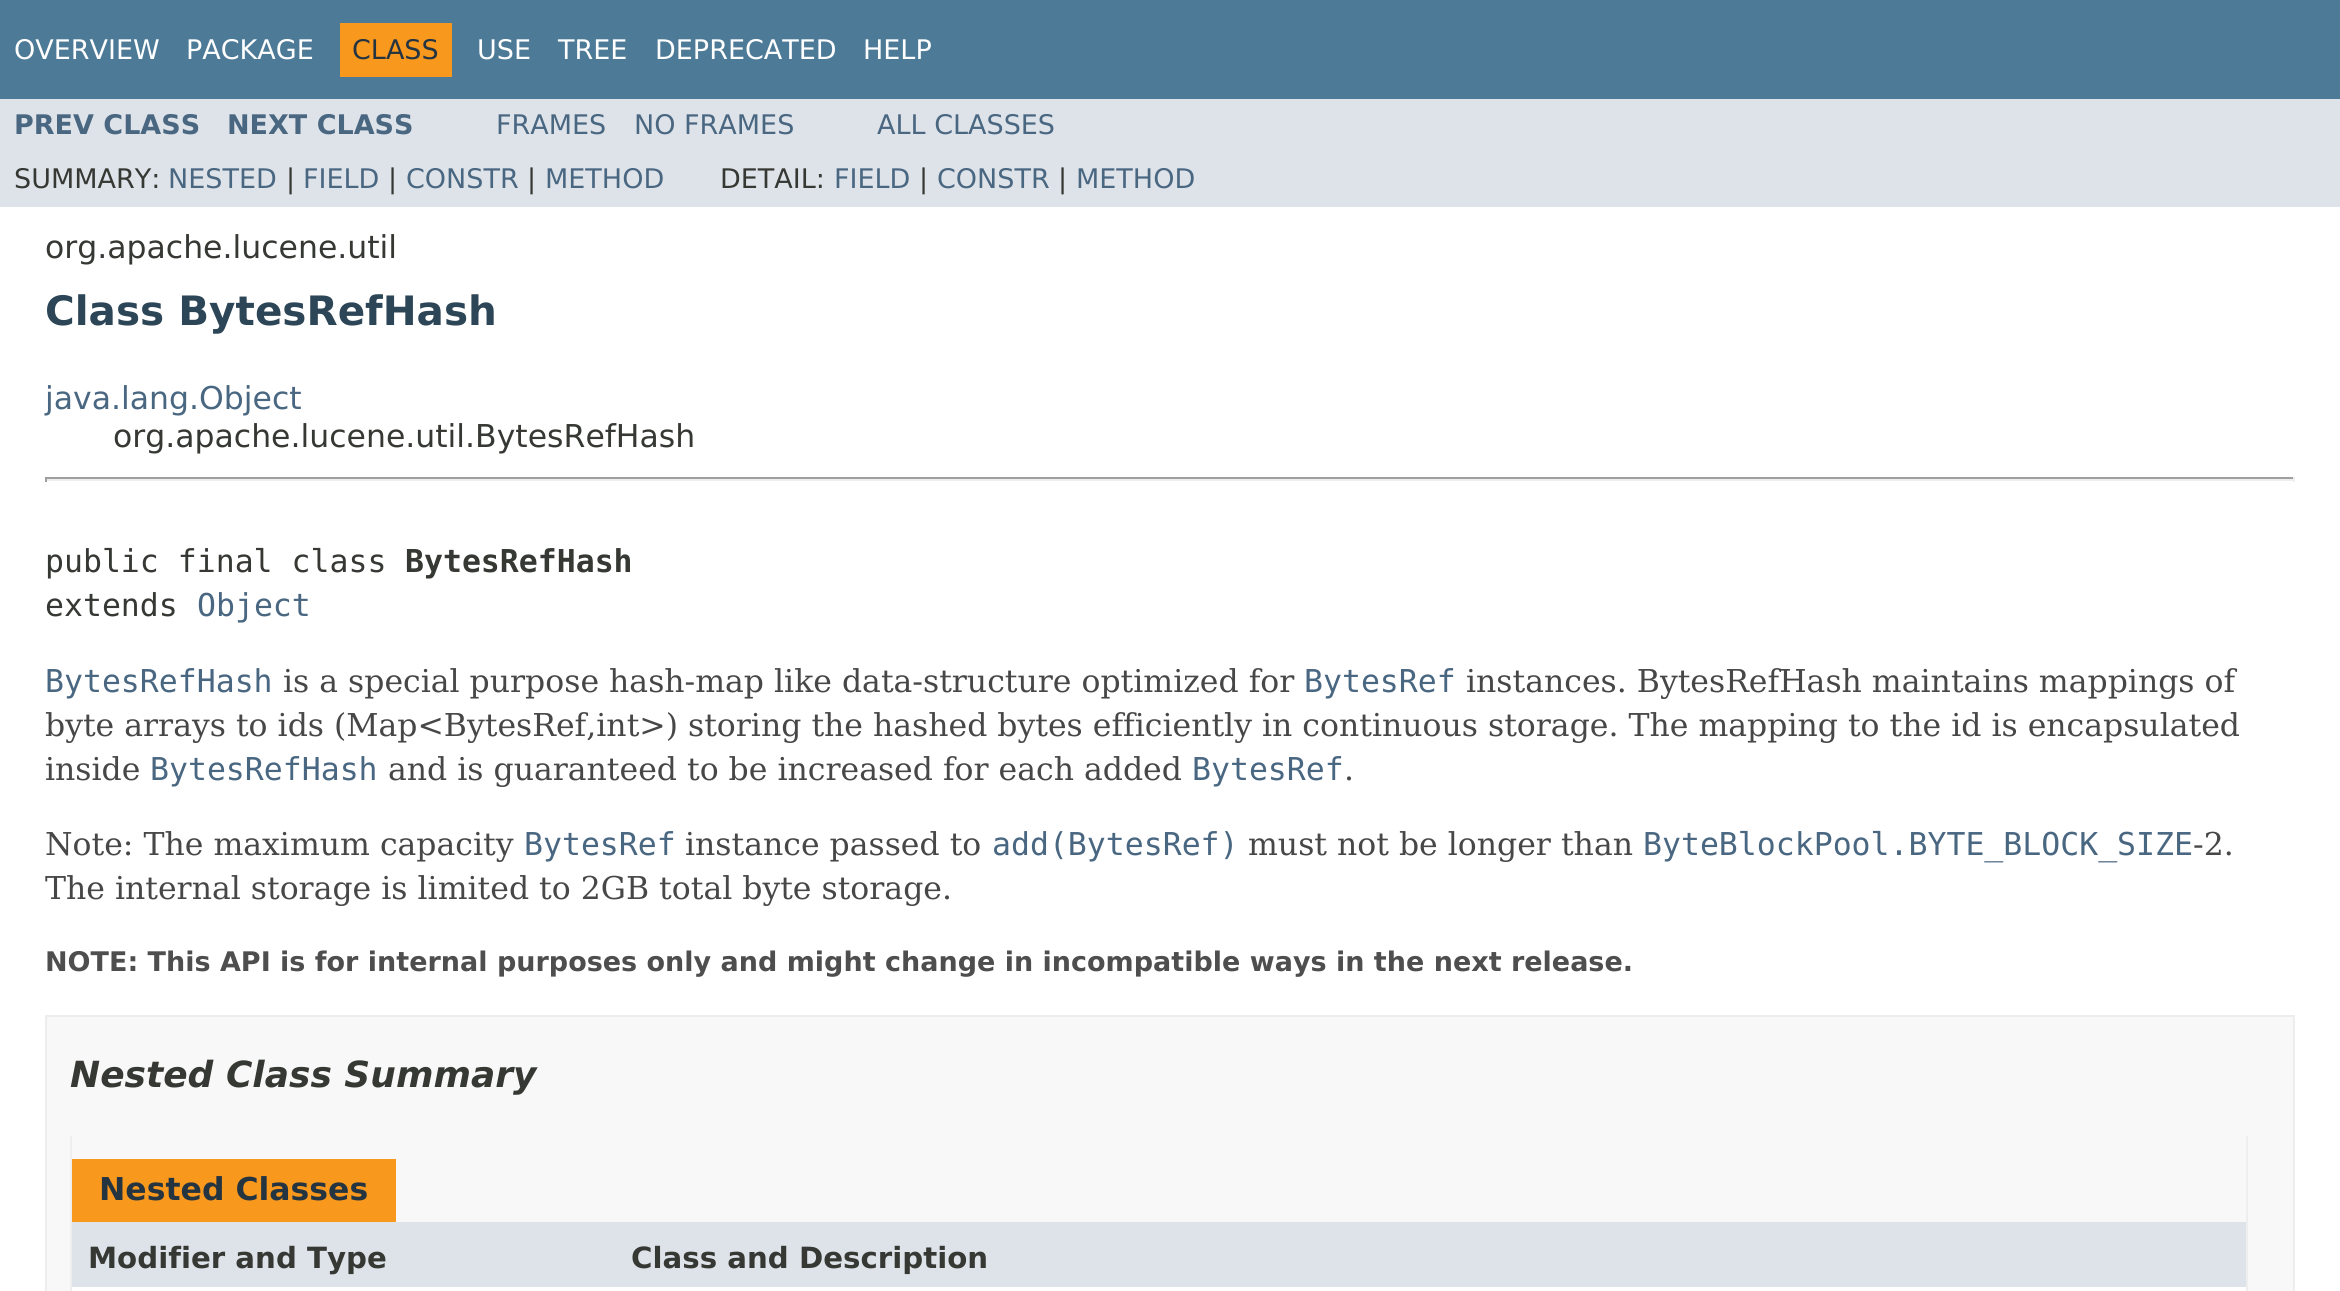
#include <cairo/cairo.h>
#include <math.h>
#include <stddef.h>

typedef struct { double x, y; const char *s; } line_t;
typedef struct { double x, y, w, h; unsigned color; } box_t;
static cairo_t *cr;

static void rgb(unsigned color)
{
	cairo_set_source_rgb(cr, (color >> 16) / 255.0, (color >> 8 & 255) / 255.0, (color & 255) / 255.0);
}

int main(void) {
	cairo_surface_t *surface = cairo_image_surface_create(CAIRO_FORMAT_RGB24, 2340, 1291);
	cr = cairo_create(surface);
	cairo_font_options_t *options = cairo_font_options_create();
	cairo_font_options_set_hint_metrics(options, CAIRO_HINT_METRICS_OFF);
	cairo_font_options_set_hint_style(options, CAIRO_HINT_STYLE_NONE);
	cairo_set_font_options(cr, options);
	cairo_set_miter_limit(cr, 4);
	rgb(0xffffff);
	cairo_paint(cr);
	{
		static const box_t items[] = {
			{0, 0, 2340, 99, 0x4d7a97},
			{340, 23, 112, 54, 0xf8981d},
			{0, 99, 2340, 108, 0xdee3e9},
			{45, 477, 2250, 2, 0x9f9f9f},
			{2293, 477, 2, 5, 0xeeeeee},
			{45, 479, 2250, 2, 0xeeeeee},
			{45, 477, 2, 5, 0x9f9f9f},
		};
		for (size_t i = 0; i < sizeof items / sizeof *items; i++) {
			rgb(items[i].color);
			cairo_rectangle(cr, items[i].x, items[i].y, items[i].w, items[i].h);
			cairo_fill(cr);
		}
	}
	rgb(0xf8f8f8);
	cairo_rectangle(cr, 46, 1016, 2248, 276);
	cairo_fill_preserve(cr);
	rgb(0xededed);
	cairo_stroke(cr);
	{
		static const box_t items[] = {
			{2246, 1136, 2, 155, 0xeeeeee},
			{70, 1136, 2, 155, 0xeeeeee},
			{72, 1159, 324, 63, 0xf8981d},
			{72, 1222, 2174, 65, 0xdee3e9},
			{72, 1287, 2174, 4, 0xffffff},
		};
		for (size_t i = 0; i < sizeof items / sizeof *items; i++) {
			rgb(items[i].color);
			cairo_rectangle(cr, items[i].x, items[i].y, items[i].w, items[i].h);
			cairo_fill(cr);
		}
	}
	cairo_select_font_face(cr, "DejaVu Sans", CAIRO_FONT_SLANT_NORMAL, CAIRO_FONT_WEIGHT_NORMAL);
	cairo_set_font_size(cr, 27);
	cairo_move_to(cr, 14, 59);
	cairo_show_text(cr, "OVERVIEW");
	cairo_move_to(cr, 186, 59);
	cairo_show_text(cr, "PACKAGE");
	rgb(0x253441);
	cairo_move_to(cr, 352, 59);
	cairo_show_text(cr, "CLASS");
	rgb(0xffffff);
	{
		static const line_t items[] = {
			{477, 59, "USE"},
			{558, 59, "TREE"},
			{655, 59, "DEPRECATED"},
			{863, 59, "HELP"},
		};
		for (size_t i = 0; i < sizeof items / sizeof *items; i++) {
			cairo_move_to(cr, items[i].x, items[i].y);
			cairo_show_text(cr, items[i].s);
		}
	}
	cairo_select_font_face(cr, "DejaVu Sans", CAIRO_FONT_SLANT_NORMAL, CAIRO_FONT_WEIGHT_BOLD);
	rgb(0x4a6782);
	cairo_move_to(cr, 14, 134);
	cairo_show_text(cr, "PREV CLASS");
	cairo_move_to(cr, 227, 134);
	cairo_show_text(cr, "NEXT CLASS");
	cairo_select_font_face(cr, "DejaVu Sans", CAIRO_FONT_SLANT_NORMAL, CAIRO_FONT_WEIGHT_NORMAL);
	{
		static const line_t items[] = {
			{496, 134, "FRAMES"},
			{634, 134, "NO FRAMES"},
			{877, 134, "ALL CLASSES"},
		};
		for (size_t i = 0; i < sizeof items / sizeof *items; i++) {
			cairo_move_to(cr, items[i].x, items[i].y);
			cairo_show_text(cr, items[i].s);
		}
	}
	rgb(0x353833);
	cairo_move_to(cr, 14, 188);
	cairo_show_text(cr, "SUMMARY:");
	rgb(0x4a6782);
	cairo_move_to(cr, 168, 188);
	cairo_show_text(cr, "NESTED");
	rgb(0x353833);
	cairo_move_to(cr, 286, 188);
	cairo_show_text(cr, "|");
	rgb(0x4a6782);
	cairo_move_to(cr, 303, 188);
	cairo_show_text(cr, "FIELD");
	rgb(0x353833);
	cairo_move_to(cr, 388, 188);
	cairo_show_text(cr, "|");
	rgb(0x4a6782);
	cairo_move_to(cr, 406, 188);
	cairo_show_text(cr, "CONSTR");
	rgb(0x353833);
	cairo_move_to(cr, 527, 188);
	cairo_show_text(cr, "|");
	rgb(0x4a6782);
	cairo_move_to(cr, 545, 188);
	cairo_show_text(cr, "METHOD");
	rgb(0x353833);
	cairo_move_to(cr, 720, 188);
	cairo_show_text(cr, "DETAIL:");
	rgb(0x4a6782);
	cairo_move_to(cr, 834, 188);
	cairo_show_text(cr, "FIELD");
	rgb(0x353833);
	cairo_move_to(cr, 919, 188);
	cairo_show_text(cr, "|");
	rgb(0x4a6782);
	cairo_move_to(cr, 937, 188);
	cairo_show_text(cr, "CONSTR");
	rgb(0x353833);
	cairo_move_to(cr, 1058, 188);
	cairo_show_text(cr, "|");
	rgb(0x4a6782);
	cairo_move_to(cr, 1076, 188);
	cairo_show_text(cr, "METHOD");
	cairo_set_font_size(cr, 31.5);
	rgb(0x353833);
	cairo_move_to(cr, 45, 258);
	cairo_show_text(cr, "org.apache.lucene.util");
	cairo_select_font_face(cr, "DejaVu Sans", CAIRO_FONT_SLANT_NORMAL, CAIRO_FONT_WEIGHT_BOLD);
	cairo_set_font_size(cr, 40.5);
	rgb(0x2c4557);
	cairo_move_to(cr, 45, 325);
	cairo_show_text(cr, "Class BytesRefHash");
	cairo_select_font_face(cr, "DejaVu Sans", CAIRO_FONT_SLANT_NORMAL, CAIRO_FONT_WEIGHT_NORMAL);
	cairo_set_font_size(cr, 31.5);
	rgb(0x4a6782);
	cairo_move_to(cr, 45, 409);
	cairo_show_text(cr, "java.lang.Object");
	rgb(0x353833);
	cairo_move_to(cr, 113, 447);
	cairo_show_text(cr, "org.apache.lucene.util.BytesRefHash");
	cairo_select_font_face(cr, "DejaVu Sans Mono", CAIRO_FONT_SLANT_NORMAL, CAIRO_FONT_WEIGHT_NORMAL);
	cairo_move_to(cr, 45, 572);
	cairo_show_text(cr, "public final class");
	cairo_select_font_face(cr, "DejaVu Sans Mono", CAIRO_FONT_SLANT_NORMAL, CAIRO_FONT_WEIGHT_BOLD);
	cairo_move_to(cr, 405, 572);
	cairo_show_text(cr, "BytesRefHash");
	cairo_select_font_face(cr, "DejaVu Sans Mono", CAIRO_FONT_SLANT_NORMAL, CAIRO_FONT_WEIGHT_NORMAL);
	cairo_move_to(cr, 45, 616);
	cairo_show_text(cr, "extends");
	rgb(0x4a6782);
	cairo_move_to(cr, 197, 616);
	cairo_show_text(cr, "Object");
	cairo_move_to(cr, 45, 692);
	cairo_show_text(cr, "BytesRefHash");
	cairo_select_font_face(cr, "DejaVu Serif", CAIRO_FONT_SLANT_NORMAL, CAIRO_FONT_WEIGHT_NORMAL);
	rgb(0x474747);
	cairo_move_to(cr, 283, 692);
	cairo_show_text(cr, "is a special purpose hash-map like data-structure optimized for");
	cairo_select_font_face(cr, "DejaVu Sans Mono", CAIRO_FONT_SLANT_NORMAL, CAIRO_FONT_WEIGHT_NORMAL);
	rgb(0x4a6782);
	cairo_move_to(cr, 1304, 692);
	cairo_show_text(cr, "BytesRef");
	cairo_select_font_face(cr, "DejaVu Serif", CAIRO_FONT_SLANT_NORMAL, CAIRO_FONT_WEIGHT_NORMAL);
	rgb(0x474747);
	{
		static const line_t items[] = {
			{1466, 692, "instances. BytesRefHash maintains mappings of"},
			{45, 736, "byte arrays to ids (Map<BytesRef,int>) storing the hashed bytes efficiently in continuous storage. The mapping to the id is encapsulated"},
			{45, 780, "inside"},
		};
		for (size_t i = 0; i < sizeof items / sizeof *items; i++) {
			cairo_move_to(cr, items[i].x, items[i].y);
			cairo_show_text(cr, items[i].s);
		}
	}
	cairo_select_font_face(cr, "DejaVu Sans Mono", CAIRO_FONT_SLANT_NORMAL, CAIRO_FONT_WEIGHT_NORMAL);
	rgb(0x4a6782);
	cairo_move_to(cr, 150, 780);
	cairo_show_text(cr, "BytesRefHash");
	cairo_select_font_face(cr, "DejaVu Serif", CAIRO_FONT_SLANT_NORMAL, CAIRO_FONT_WEIGHT_NORMAL);
	rgb(0x474747);
	cairo_move_to(cr, 388, 780);
	cairo_show_text(cr, "and is guaranteed to be increased for each added");
	cairo_select_font_face(cr, "DejaVu Sans Mono", CAIRO_FONT_SLANT_NORMAL, CAIRO_FONT_WEIGHT_NORMAL);
	rgb(0x4a6782);
	cairo_move_to(cr, 1192, 780);
	cairo_show_text(cr, "BytesRef");
	cairo_select_font_face(cr, "DejaVu Serif", CAIRO_FONT_SLANT_NORMAL, CAIRO_FONT_WEIGHT_NORMAL);
	rgb(0x474747);
	cairo_move_to(cr, 1344, 780);
	cairo_show_text(cr, ".");
	cairo_move_to(cr, 45, 855);
	cairo_show_text(cr, "Note: The maximum capacity");
	cairo_select_font_face(cr, "DejaVu Sans Mono", CAIRO_FONT_SLANT_NORMAL, CAIRO_FONT_WEIGHT_NORMAL);
	rgb(0x4a6782);
	cairo_move_to(cr, 524, 855);
	cairo_show_text(cr, "BytesRef");
	cairo_select_font_face(cr, "DejaVu Serif", CAIRO_FONT_SLANT_NORMAL, CAIRO_FONT_WEIGHT_NORMAL);
	rgb(0x474747);
	cairo_move_to(cr, 685, 855);
	cairo_show_text(cr, "instance passed to");
	cairo_select_font_face(cr, "DejaVu Sans Mono", CAIRO_FONT_SLANT_NORMAL, CAIRO_FONT_WEIGHT_NORMAL);
	rgb(0x4a6782);
	cairo_move_to(cr, 992, 855);
	cairo_show_text(cr, "add(BytesRef)");
	cairo_select_font_face(cr, "DejaVu Serif", CAIRO_FONT_SLANT_NORMAL, CAIRO_FONT_WEIGHT_NORMAL);
	rgb(0x474747);
	cairo_move_to(cr, 1248, 855);
	cairo_show_text(cr, "must not be longer than");
	cairo_select_font_face(cr, "DejaVu Sans Mono", CAIRO_FONT_SLANT_NORMAL, CAIRO_FONT_WEIGHT_NORMAL);
	rgb(0x4a6782);
	cairo_move_to(cr, 1643, 855);
	cairo_show_text(cr, "ByteBlockPool.BYTE_BLOCK_SIZE");
	cairo_select_font_face(cr, "DejaVu Serif", CAIRO_FONT_SLANT_NORMAL, CAIRO_FONT_WEIGHT_NORMAL);
	rgb(0x474747);
	cairo_move_to(cr, 2193, 855);
	cairo_show_text(cr, "-2.");
	cairo_move_to(cr, 45, 899);
	cairo_show_text(cr, "The internal storage is limited to 2GB total byte storage.");
	cairo_select_font_face(cr, "DejaVu Sans", CAIRO_FONT_SLANT_NORMAL, CAIRO_FONT_WEIGHT_BOLD);
	cairo_set_font_size(cr, 27);
	rgb(0x4e4e4e);
	cairo_move_to(cr, 45, 971);
	cairo_show_text(cr, "NOTE: This API is for internal purposes only and might change in incompatible ways in the next release.");
	cairo_select_font_face(cr, "DejaVu Sans", CAIRO_FONT_SLANT_ITALIC, CAIRO_FONT_WEIGHT_BOLD);
	cairo_set_font_size(cr, 36);
	rgb(0x353833);
	cairo_move_to(cr, 70, 1087);
	cairo_show_text(cr, "Nested Class Summary");
	cairo_select_font_face(cr, "DejaVu Sans", CAIRO_FONT_SLANT_NORMAL, CAIRO_FONT_WEIGHT_BOLD);
	cairo_set_font_size(cr, 31.5);
	rgb(0x253441);
	cairo_move_to(cr, 99, 1200);
	cairo_show_text(cr, "Nested Classes");
	cairo_set_font_size(cr, 29.25);
	rgb(0x353833);
	cairo_move_to(cr, 88, 1268);
	cairo_show_text(cr, "Modifier and Type");
	cairo_move_to(cr, 631, 1268);
	cairo_show_text(cr, "Class and Description");
	cairo_surface_write_to_png(surface, "page.png");
	cairo_font_options_destroy(options);
	cairo_destroy(cr);
	cairo_surface_destroy(surface);
	return 0;
}
